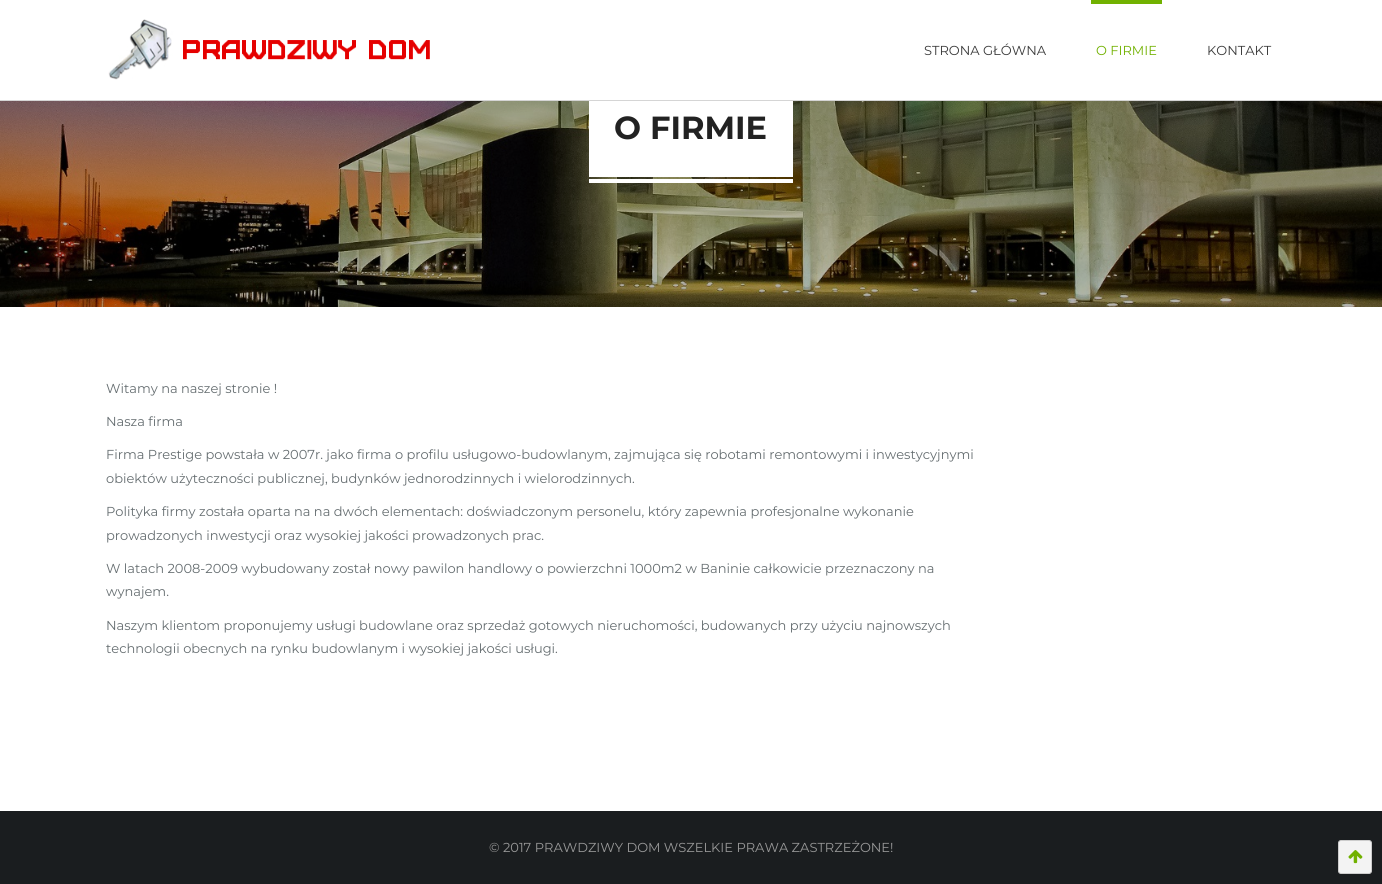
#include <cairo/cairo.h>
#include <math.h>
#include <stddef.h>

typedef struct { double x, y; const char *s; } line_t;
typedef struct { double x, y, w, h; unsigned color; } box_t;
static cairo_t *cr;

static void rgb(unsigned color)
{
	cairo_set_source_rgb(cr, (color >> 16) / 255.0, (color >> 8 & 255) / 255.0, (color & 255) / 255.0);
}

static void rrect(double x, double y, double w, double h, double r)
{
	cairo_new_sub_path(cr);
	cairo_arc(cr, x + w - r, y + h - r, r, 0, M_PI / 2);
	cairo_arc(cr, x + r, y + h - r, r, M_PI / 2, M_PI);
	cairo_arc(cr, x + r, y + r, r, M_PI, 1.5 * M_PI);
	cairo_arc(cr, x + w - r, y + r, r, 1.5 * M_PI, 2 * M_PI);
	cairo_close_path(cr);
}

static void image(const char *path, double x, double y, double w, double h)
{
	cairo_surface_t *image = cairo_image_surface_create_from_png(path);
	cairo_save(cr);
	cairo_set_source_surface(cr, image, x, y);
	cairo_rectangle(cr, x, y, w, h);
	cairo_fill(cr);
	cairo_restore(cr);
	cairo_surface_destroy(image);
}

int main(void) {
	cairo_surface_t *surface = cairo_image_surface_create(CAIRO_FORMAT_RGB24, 1382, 884);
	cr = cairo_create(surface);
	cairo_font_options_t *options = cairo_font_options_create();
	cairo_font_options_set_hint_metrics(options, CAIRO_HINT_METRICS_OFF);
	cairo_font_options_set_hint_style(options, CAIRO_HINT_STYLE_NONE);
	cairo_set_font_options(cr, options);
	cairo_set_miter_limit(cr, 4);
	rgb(0xffffff);
	cairo_paint(cr);
	rgb(0xd5d5d5);
	cairo_rectangle(cr, 0, 100, 1382, 1);
	cairo_fill(cr);
	image("img/1.png", 108, 19, 322, 61);
	rgb(0x71b100);
	cairo_rectangle(cr, 1091, 0, 71, 4);
	cairo_fill(cr);
	image("img/2.png", 0, 101, 1382, 206);
	{
		static const box_t items[] = {
			{589, 101, 204, 76, 0xffffff},
			{589, 179, 204, 4, 0xffffff},
			{0, 811, 1382, 73, 0x1a1d1f},
		};
		for (size_t i = 0; i < sizeof items / sizeof *items; i++) {
			rgb(items[i].color);
			cairo_rectangle(cr, items[i].x, items[i].y, items[i].w, items[i].h);
			cairo_fill(cr);
		}
	}
	rgb(0xf3f3f3);
	rrect(1338.5, 840.5, 33, 33, 2.5);
	cairo_fill_preserve(cr);
	rgb(0xcccccc);
	cairo_set_line_width(cr, 1);
	cairo_stroke(cr);
	image("img/3.png", 1348, 850, 15, 14);
	cairo_select_font_face(cr, "Montserrat", CAIRO_FONT_SLANT_NORMAL, CAIRO_FONT_WEIGHT_NORMAL);
	cairo_set_font_size(cr, 13);
	rgb(0x3a3a3a);
	cairo_move_to(cr, 924, 55);
	cairo_show_text(cr, "STRONA GŁÓWNA");
	rgb(0x71b100);
	cairo_move_to(cr, 1096, 55);
	cairo_show_text(cr, "O FIRMIE");
	rgb(0x3a3a3a);
	cairo_move_to(cr, 1207, 55);
	cairo_show_text(cr, "KONTAKT");
	cairo_select_font_face(cr, "Montserrat", CAIRO_FONT_SLANT_NORMAL, CAIRO_FONT_WEIGHT_BOLD);
	cairo_set_font_size(cr, 32);
	rgb(0x222222);
	cairo_move_to(cr, 614, 139);
	cairo_show_text(cr, "O FIRMIE");
	cairo_select_font_face(cr, "Montserrat", CAIRO_FONT_SLANT_NORMAL, CAIRO_FONT_WEIGHT_NORMAL);
	cairo_set_font_size(cr, 13);
	rgb(0x656d70);
	{
		static const line_t items[] = {
			{106, 393, "Witamy na naszej stronie !"},
			{106, 426, "Nasza firma"},
			{106, 459, "Firma Prestige powstała w 2007r. jako firma o profilu usługowo-budowlanym, zajmująca się robotami remontowymi i inwestycyjnymi"},
			{106, 483, "obiektów użyteczności publicznej, budynków jednorodzinnych i wielorodzinnych."},
			{106, 516, "Polityka firmy została oparta na na dwóch elementach: doświadczonym personelu, który zapewnia profesjonalne wykonanie"},
			{106, 540, "prowadzonych inwestycji oraz wysokiej jakości prowadzonych prac."},
			{106, 573, "W latach 2008-2009 wybudowany został nowy pawilon handlowy o powierzchni 1000m2 w Baninie całkowicie przeznaczony na"},
			{106, 596, "wynajem."},
			{106, 630, "Naszym klientom proponujemy usługi budowlane oraz sprzedaż gotowych nieruchomości, budowanych przy użyciu najnowszych"},
			{106, 653, "technologii obecnych na rynku budowlanym i wysokiej jakości usługi."},
		};
		for (size_t i = 0; i < sizeof items / sizeof *items; i++) {
			cairo_move_to(cr, items[i].x, items[i].y);
			cairo_show_text(cr, items[i].s);
		}
	}
	rgb(0x999999);
	cairo_move_to(cr, 489, 852);
	cairo_show_text(cr, "© 2017 PRAWDZIWY DOM WSZELKIE PRAWA ZASTRZEŻONE!");
	cairo_surface_write_to_png(surface, "page.png");
	cairo_font_options_destroy(options);
	cairo_destroy(cr);
	cairo_surface_destroy(surface);
	return 0;
}
